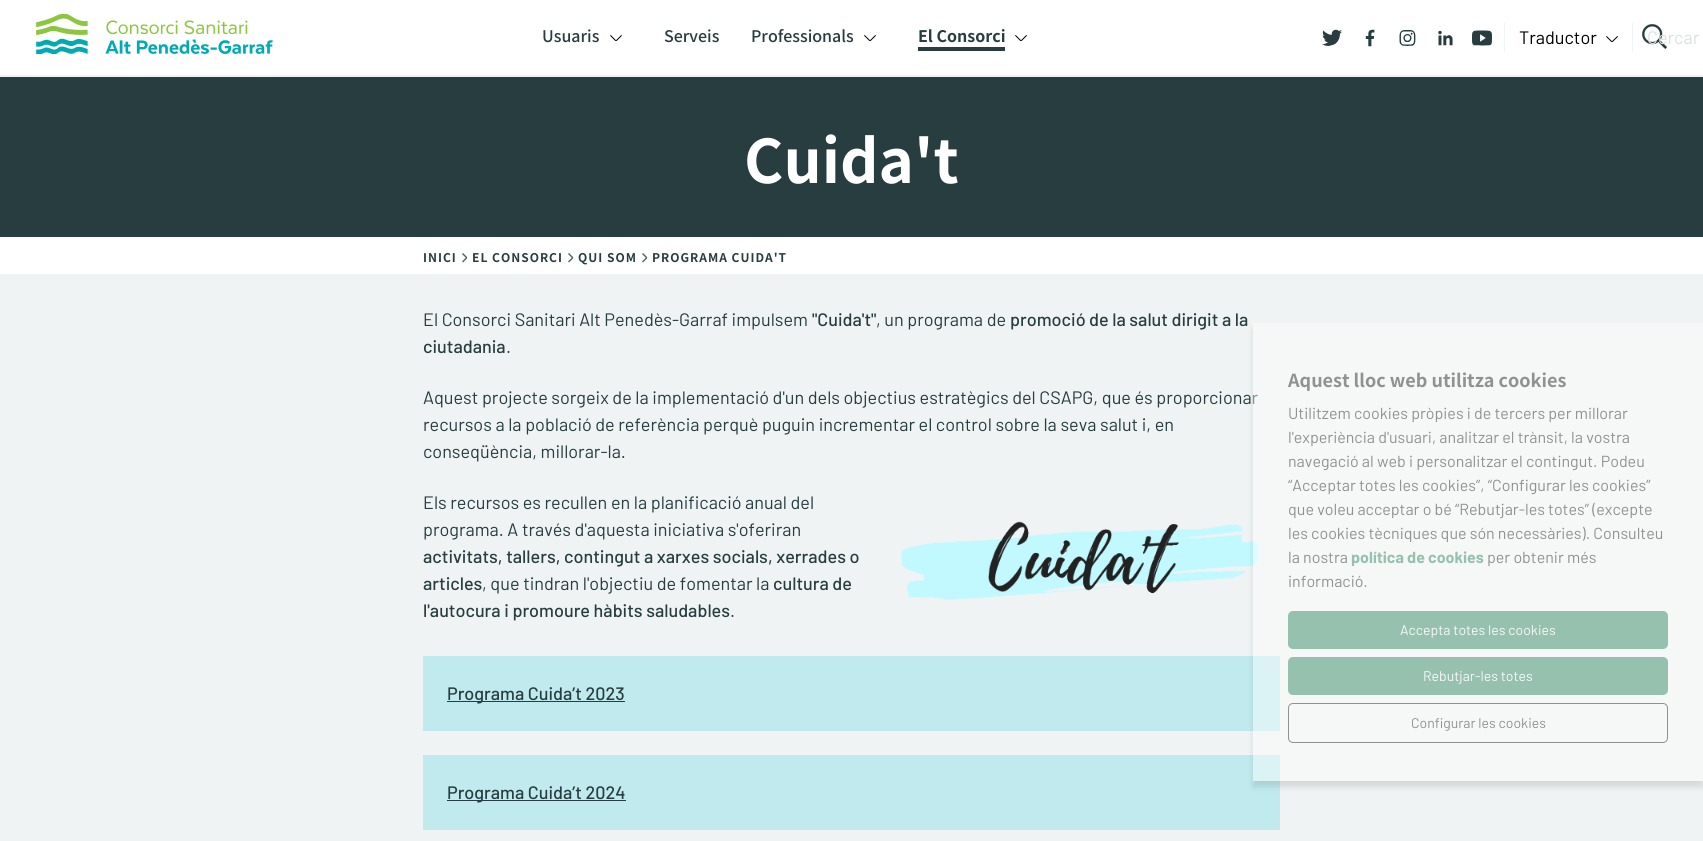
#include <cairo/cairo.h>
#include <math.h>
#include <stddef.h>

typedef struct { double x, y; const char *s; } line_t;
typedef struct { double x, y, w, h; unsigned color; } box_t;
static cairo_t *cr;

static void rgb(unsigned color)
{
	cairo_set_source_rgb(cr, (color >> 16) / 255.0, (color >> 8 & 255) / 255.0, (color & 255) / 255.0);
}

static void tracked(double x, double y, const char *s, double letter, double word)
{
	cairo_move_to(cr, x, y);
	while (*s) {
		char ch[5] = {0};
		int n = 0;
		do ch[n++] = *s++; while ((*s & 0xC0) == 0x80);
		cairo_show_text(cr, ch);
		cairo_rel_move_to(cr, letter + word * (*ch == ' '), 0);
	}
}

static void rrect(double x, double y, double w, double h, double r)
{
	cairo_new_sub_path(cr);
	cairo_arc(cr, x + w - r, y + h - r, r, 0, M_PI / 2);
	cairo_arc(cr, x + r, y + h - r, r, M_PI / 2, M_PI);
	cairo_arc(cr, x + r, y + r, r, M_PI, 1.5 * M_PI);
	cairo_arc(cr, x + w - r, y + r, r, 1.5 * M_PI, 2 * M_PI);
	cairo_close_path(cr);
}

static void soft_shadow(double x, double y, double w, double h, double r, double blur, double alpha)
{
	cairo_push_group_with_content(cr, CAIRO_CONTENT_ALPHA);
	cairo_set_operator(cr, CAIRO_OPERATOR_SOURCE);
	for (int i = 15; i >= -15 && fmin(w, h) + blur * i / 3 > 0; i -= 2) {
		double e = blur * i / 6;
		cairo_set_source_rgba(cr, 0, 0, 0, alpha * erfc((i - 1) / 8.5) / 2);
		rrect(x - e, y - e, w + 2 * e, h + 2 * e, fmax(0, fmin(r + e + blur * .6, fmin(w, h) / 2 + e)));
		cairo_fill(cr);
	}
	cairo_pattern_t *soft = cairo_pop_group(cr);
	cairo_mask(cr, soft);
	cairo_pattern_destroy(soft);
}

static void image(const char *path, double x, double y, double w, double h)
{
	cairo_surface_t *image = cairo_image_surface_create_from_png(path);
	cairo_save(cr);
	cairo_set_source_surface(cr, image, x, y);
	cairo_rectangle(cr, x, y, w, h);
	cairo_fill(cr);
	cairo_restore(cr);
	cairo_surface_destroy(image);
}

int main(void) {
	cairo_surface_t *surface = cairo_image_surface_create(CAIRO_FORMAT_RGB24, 1703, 841);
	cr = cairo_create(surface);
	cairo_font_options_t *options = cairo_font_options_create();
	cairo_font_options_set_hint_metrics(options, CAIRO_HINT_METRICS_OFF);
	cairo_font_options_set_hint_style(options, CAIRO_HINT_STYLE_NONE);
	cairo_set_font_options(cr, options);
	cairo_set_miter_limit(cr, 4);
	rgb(0xeff3f3);
	cairo_paint(cr);
	rgb(0xffffff);
	cairo_rectangle(cr, 0, 0, 1703, 75);
	cairo_fill(cr);
	image("img/1.png", 36, 14, 237, 40);
	image("img/2.png", 610, 35, 12, 6);
	image("img/2.png", 864, 35, 12, 6);
	rgb(0x273d3f);
	cairo_rectangle(cr, 918, 47, 87, 4);
	cairo_fill(cr);
	image("img/2.png", 1015, 35, 12, 6);
	rgb(0xeff3f3);
	cairo_rectangle(cr, 1504, 23, 1, 29);
	cairo_fill(cr);
	image("img/3.png", 1322, 29, 20, 17);
	image("img/4.png", 1365, 29, 10, 18);
	image("img/5.png", 1399, 30, 17, 16);
	image("img/6.png", 1438, 30, 15, 16);
	image("img/7.png", 1472, 30, 20, 16);
	cairo_rectangle(cr, 1632, 23, 1, 29);
	cairo_fill(cr);
	image("img/2.png", 1606, 36, 12, 6);
	image("img/8.png", 1642, 24, 25, 25);
	rgb(0x273d3f);
	cairo_rectangle(cr, 0, 77, 1703, 160);
	cairo_fill(cr);
	rgb(0xffffff);
	cairo_rectangle(cr, 0, 237, 1703, 37);
	cairo_fill(cr);
	image("img/9.png", 462, 253, 6, 10);
	image("img/9.png", 568, 253, 6, 10);
	image("img/9.png", 642, 253, 6, 10);
	image("img/10.png", 901, 521, 358, 79);
	{
		static const box_t items[] = {
			{423, 656, 857, 75, 0xc0eaee},
			{447, 701, 178, 1, 0x273d3f},
			{423, 755, 857, 75, 0xc0eaee},
			{447, 800, 179, 1, 0x273d3f},
		};
		for (size_t i = 0; i < sizeof items / sizeof *items; i++) {
			rgb(items[i].color);
			cairo_rectangle(cr, items[i].x, items[i].y, items[i].w, items[i].h);
			cairo_fill(cr);
		}
	}
	cairo_save(cr);
	cairo_set_fill_rule(cr, CAIRO_FILL_RULE_EVEN_ODD);
	cairo_new_path(cr);
	cairo_move_to(cr, 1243, 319);
	cairo_line_to(cr, 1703, 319);
	cairo_line_to(cr, 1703, 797);
	cairo_line_to(cr, 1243, 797);
	cairo_close_path(cr);
	cairo_move_to(cr, 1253, 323);
	cairo_line_to(cr, 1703, 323);
	cairo_line_to(cr, 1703, 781);
	cairo_line_to(cr, 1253, 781);
	cairo_close_path(cr);
	cairo_clip(cr);
	rgb(0x000000);
	soft_shadow(1253, 329, 450, 458, 0, 3, 0.11);
	cairo_restore(cr);
	cairo_select_font_face(cr, "Noto Sans JP Medium", CAIRO_FONT_SLANT_NORMAL, CAIRO_FONT_WEIGHT_NORMAL);
	cairo_set_font_size(cr, 16);
	{
		static const line_t items[] = {
			{542, 42, "Usuaris"},
			{664, 42, "Serveis"},
			{751, 42, "Professionals"},
		};
		for (size_t i = 0; i < sizeof items / sizeof *items; i++) {
			cairo_move_to(cr, items[i].x, items[i].y);
			cairo_show_text(cr, items[i].s);
		}
	}
	cairo_select_font_face(cr, "Noto Sans JP", CAIRO_FONT_SLANT_NORMAL, CAIRO_FONT_WEIGHT_BOLD);
	cairo_move_to(cr, 918, 42);
	cairo_show_text(cr, "El Consorci");
	cairo_select_font_face(cr, "Barlow", CAIRO_FONT_SLANT_NORMAL, CAIRO_FONT_WEIGHT_NORMAL);
	cairo_set_font_size(cr, 18);
	rgb(0x000000);
	cairo_move_to(cr, 1519, 44);
	cairo_show_text(cr, "Traductor");
	rgb(0xdce0e0);
	cairo_move_to(cr, 1647, 44);
	cairo_show_text(cr, "Cercar");
	cairo_select_font_face(cr, "Noto Sans JP", CAIRO_FONT_SLANT_NORMAL, CAIRO_FONT_WEIGHT_BOLD);
	cairo_set_font_size(cr, 60);
	rgb(0xffffff);
	cairo_move_to(cr, 744, 183);
	cairo_show_text(cr, "Cuida't");
	cairo_set_font_size(cr, 12);
	rgb(0x273d3f);
	{
		static const line_t items[] = {
			{423, 262, "INICI"},
			{472, 262, "EL CONSORCI"},
			{578, 262, "QUI SOM"},
			{652, 262, "PROGRAMA CUIDA'T"},
		};
		for (size_t i = 0; i < sizeof items / sizeof *items; i++) {
			tracked(items[i].x, items[i].y, items[i].s, 1, 0);
		}
	}
	cairo_select_font_face(cr, "Barlow", CAIRO_FONT_SLANT_NORMAL, CAIRO_FONT_WEIGHT_NORMAL);
	cairo_set_font_size(cr, 18);
	cairo_move_to(cr, 423, 326);
	cairo_show_text(cr, "El Consorci Sanitari Alt Penedès-Garraf impulsem");
	cairo_select_font_face(cr, "Barlow Medium", CAIRO_FONT_SLANT_NORMAL, CAIRO_FONT_WEIGHT_NORMAL);
	cairo_move_to(cr, 812, 326);
	cairo_show_text(cr, "\"Cuida't\"");
	cairo_select_font_face(cr, "Barlow", CAIRO_FONT_SLANT_NORMAL, CAIRO_FONT_WEIGHT_NORMAL);
	cairo_move_to(cr, 876, 326);
	cairo_show_text(cr, ", un programa de");
	cairo_select_font_face(cr, "Barlow Medium", CAIRO_FONT_SLANT_NORMAL, CAIRO_FONT_WEIGHT_NORMAL);
	cairo_move_to(cr, 1010, 326);
	cairo_show_text(cr, "promoció de la salut dirigit a la");
	cairo_move_to(cr, 423, 353);
	cairo_show_text(cr, "ciutadania");
	cairo_select_font_face(cr, "Barlow", CAIRO_FONT_SLANT_NORMAL, CAIRO_FONT_WEIGHT_NORMAL);
	{
		static const line_t items[] = {
			{506, 353, "."},
			{423, 404, "Aquest projecte sorgeix de la implementació d'un dels objectius estratègics del CSAPG, que és proporcionar"},
			{423, 431, "recursos a la població de referència perquè puguin incrementar el control sobre la seva salut i, en"},
			{423, 458, "conseqüència, millorar-la."},
			{423, 509, "Els recursos es recullen en la planificació anual del"},
			{423, 536, "programa. A través d'aquesta iniciativa s'oferiran"},
		};
		for (size_t i = 0; i < sizeof items / sizeof *items; i++) {
			cairo_move_to(cr, items[i].x, items[i].y);
			cairo_show_text(cr, items[i].s);
		}
	}
	cairo_select_font_face(cr, "Barlow Medium", CAIRO_FONT_SLANT_NORMAL, CAIRO_FONT_WEIGHT_NORMAL);
	cairo_move_to(cr, 423, 563);
	cairo_show_text(cr, "activitats, tallers, contingut a xarxes socials, xerrades o");
	cairo_move_to(cr, 423, 590);
	cairo_show_text(cr, "articles");
	cairo_select_font_face(cr, "Barlow", CAIRO_FONT_SLANT_NORMAL, CAIRO_FONT_WEIGHT_NORMAL);
	cairo_move_to(cr, 482, 590);
	cairo_show_text(cr, ", que tindran l'objectiu de fomentar la");
	cairo_select_font_face(cr, "Barlow Medium", CAIRO_FONT_SLANT_NORMAL, CAIRO_FONT_WEIGHT_NORMAL);
	cairo_move_to(cr, 773, 590);
	cairo_show_text(cr, "cultura de");
	cairo_move_to(cr, 423, 617);
	cairo_show_text(cr, "l'autocura i promoure hàbits saludables");
	cairo_select_font_face(cr, "Barlow", CAIRO_FONT_SLANT_NORMAL, CAIRO_FONT_WEIGHT_NORMAL);
	cairo_move_to(cr, 730, 617);
	cairo_show_text(cr, ".");
	cairo_select_font_face(cr, "Barlow Medium", CAIRO_FONT_SLANT_NORMAL, CAIRO_FONT_WEIGHT_NORMAL);
	cairo_move_to(cr, 447, 700);
	cairo_show_text(cr, "Programa Cuida’t 2023");
	cairo_move_to(cr, 447, 799);
	cairo_show_text(cr, "Programa Cuida’t 2024");
	cairo_set_source_rgba(cr, 1, 1, 1, 0.45);
	cairo_rectangle(cr, 1253, 323, 450, 458);
	cairo_fill(cr);
	cairo_select_font_face(cr, "Noto Sans JP", CAIRO_FONT_SLANT_NORMAL, CAIRO_FONT_WEIGHT_BOLD);
	rgb(0x909292);
	cairo_move_to(cr, 1288, 387);
	cairo_show_text(cr, "Aquest lloc web utilitza cookies");
	cairo_select_font_face(cr, "Barlow", CAIRO_FONT_SLANT_NORMAL, CAIRO_FONT_WEIGHT_NORMAL);
	cairo_set_font_size(cr, 16);
	{
		static const line_t items[] = {
			{1288, 419, "Utilitzem cookies pròpies i de tercers per millorar"},
			{1288, 443, "l'experiència d'usuari, analitzar el trànsit, la vostra"},
			{1288, 467, "navegació al web i personalitzar el contingut. Podeu"},
			{1288, 491, "“Acceptar totes les cookies”, “Configurar les cookies”"},
			{1288, 515, "que voleu acceptar o bé “Rebutjar-les totes” (excepte"},
			{1288, 539, "les cookies tècniques que són necessàries). Consulteu"},
			{1288, 563, "la nostra"},
		};
		for (size_t i = 0; i < sizeof items / sizeof *items; i++) {
			cairo_move_to(cr, items[i].x, items[i].y);
			cairo_show_text(cr, items[i].s);
		}
	}
	cairo_select_font_face(cr, "Barlow", CAIRO_FONT_SLANT_NORMAL, CAIRO_FONT_WEIGHT_BOLD);
	rgb(0x95c1ae);
	cairo_move_to(cr, 1351, 563);
	cairo_show_text(cr, "política de cookies");
	cairo_select_font_face(cr, "Barlow", CAIRO_FONT_SLANT_NORMAL, CAIRO_FONT_WEIGHT_NORMAL);
	rgb(0x909292);
	cairo_move_to(cr, 1487, 563);
	cairo_show_text(cr, "per obtenir més");
	cairo_move_to(cr, 1288, 587);
	cairo_show_text(cr, "informació.");
	rgb(0x95c1ae);
	rrect(1288, 611, 380, 38, 5);
	cairo_fill(cr);
	cairo_set_font_size(cr, 14);
	rgb(0xf6f8f8);
	cairo_move_to(cr, 1400, 635);
	cairo_show_text(cr, "Accepta totes les cookies");
	rgb(0x95c1ae);
	rrect(1288, 657, 380, 38, 5);
	cairo_fill(cr);
	rgb(0xf6f8f8);
	cairo_move_to(cr, 1423, 681);
	cairo_show_text(cr, "Rebutjar-les totes");
	rrect(1288.5, 703.5, 379, 39, 4.5);
	rgb(0x909292);
	cairo_set_line_width(cr, 1);
	cairo_stroke(cr);
	cairo_move_to(cr, 1411, 728);
	cairo_show_text(cr, "Configurar les cookies");
	cairo_surface_write_to_png(surface, "page.png");
	cairo_font_options_destroy(options);
	cairo_destroy(cr);
	cairo_surface_destroy(surface);
	return 0;
}
